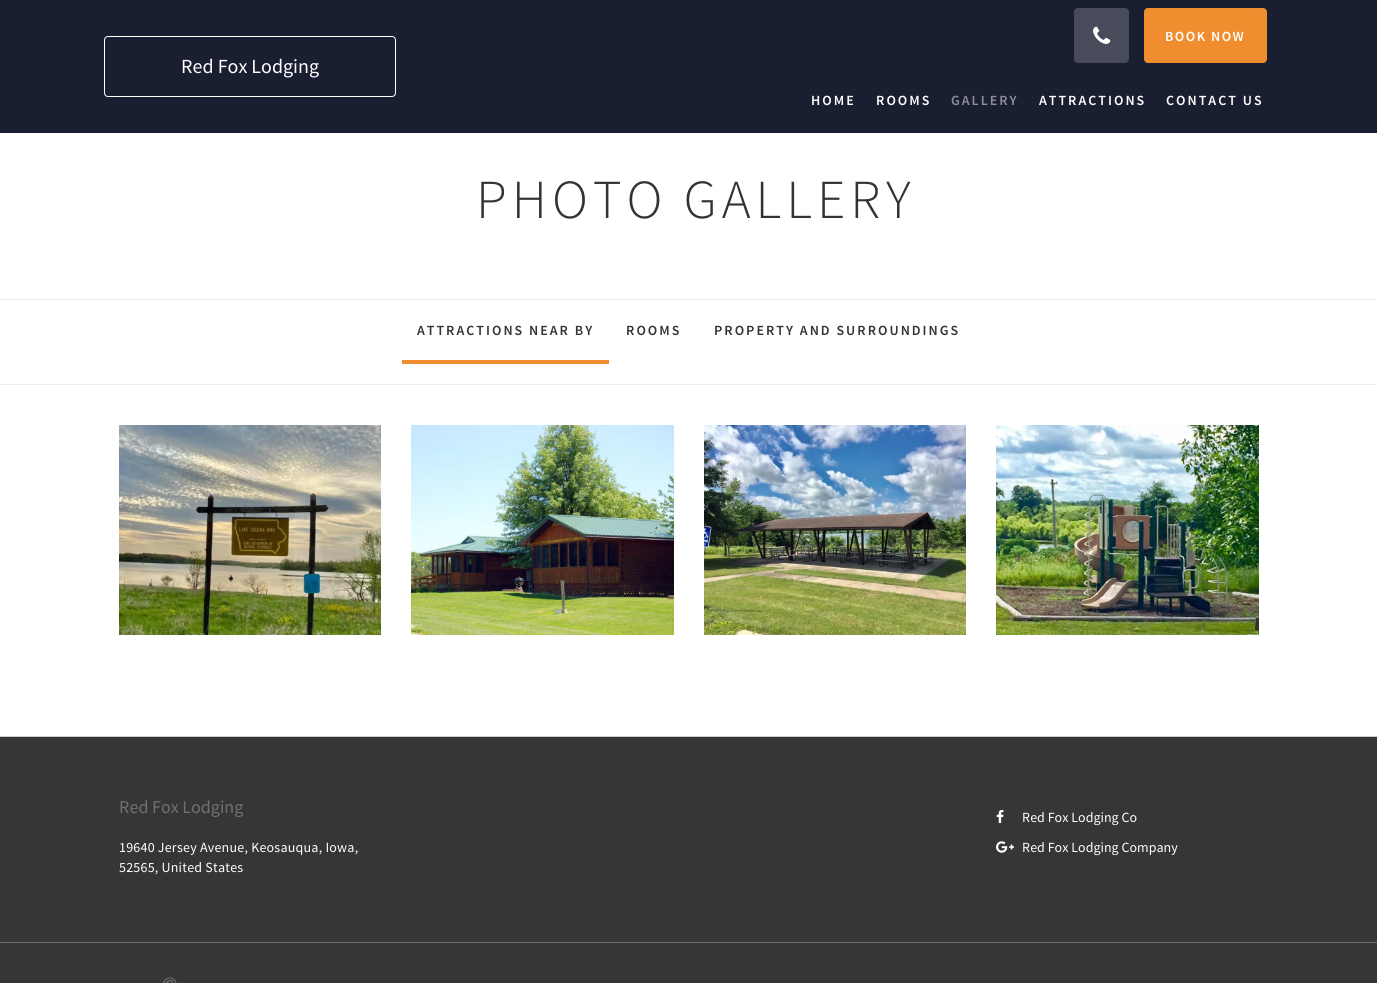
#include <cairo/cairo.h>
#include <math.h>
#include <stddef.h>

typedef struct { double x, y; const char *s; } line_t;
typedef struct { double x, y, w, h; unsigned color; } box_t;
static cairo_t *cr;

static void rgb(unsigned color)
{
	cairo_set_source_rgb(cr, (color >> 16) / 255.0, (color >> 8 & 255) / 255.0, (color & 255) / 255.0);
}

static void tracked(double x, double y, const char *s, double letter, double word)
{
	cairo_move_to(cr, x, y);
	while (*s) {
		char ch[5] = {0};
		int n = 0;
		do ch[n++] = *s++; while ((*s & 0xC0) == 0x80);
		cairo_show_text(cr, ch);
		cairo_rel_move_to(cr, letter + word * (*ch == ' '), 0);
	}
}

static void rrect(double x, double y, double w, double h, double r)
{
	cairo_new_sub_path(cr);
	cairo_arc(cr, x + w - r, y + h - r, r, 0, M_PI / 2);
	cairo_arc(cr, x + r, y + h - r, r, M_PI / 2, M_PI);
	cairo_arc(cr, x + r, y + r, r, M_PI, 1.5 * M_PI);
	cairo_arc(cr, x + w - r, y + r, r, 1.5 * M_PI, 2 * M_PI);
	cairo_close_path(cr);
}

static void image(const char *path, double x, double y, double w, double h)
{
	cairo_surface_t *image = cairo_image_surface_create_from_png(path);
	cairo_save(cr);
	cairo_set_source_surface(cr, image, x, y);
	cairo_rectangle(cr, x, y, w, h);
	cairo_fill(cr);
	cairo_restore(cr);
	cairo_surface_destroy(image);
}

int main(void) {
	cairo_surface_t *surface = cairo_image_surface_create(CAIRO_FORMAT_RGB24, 1377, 983);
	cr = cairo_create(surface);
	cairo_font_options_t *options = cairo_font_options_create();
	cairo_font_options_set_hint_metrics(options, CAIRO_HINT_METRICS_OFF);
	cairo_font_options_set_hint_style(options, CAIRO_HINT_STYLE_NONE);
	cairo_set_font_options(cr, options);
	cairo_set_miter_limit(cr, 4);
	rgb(0xffffff);
	cairo_paint(cr);
	rgb(0x191e31);
	cairo_rectangle(cr, 0, 0, 1377, 133);
	cairo_fill(cr);
	rrect(104.5, 36.5, 291, 60, 3.5);
	rgb(0xffffff);
	cairo_set_line_width(cr, 1);
	cairo_stroke(cr);
	rgb(0x474b5a);
	rrect(1074, 8, 55, 55, 4);
	cairo_fill(cr);
	image("img/1.png", 1093, 26, 18, 18);
	rgb(0xef8d2f);
	rrect(1144.5, 8.5, 122, 54, 3.5);
	cairo_fill_preserve(cr);
	cairo_stroke(cr);
	{
		static const box_t items[] = {
			{0, 299, 1377, 1, 0xececec},
			{0, 384, 1377, 1, 0xececec},
			{402, 360, 207, 4, 0xef8d2f},
		};
		for (size_t i = 0; i < sizeof items / sizeof *items; i++) {
			rgb(items[i].color);
			cairo_rectangle(cr, items[i].x, items[i].y, items[i].w, items[i].h);
			cairo_fill(cr);
		}
	}
	image("img/2.png", 119, 425, 262, 210);
	image("img/3.png", 411, 425, 263, 210);
	image("img/4.png", 704, 425, 262, 210);
	image("img/5.png", 996, 425, 263, 210);
	{
		static const box_t items[] = {
			{0, 737, 1377, 205, 0x363636},
			{0, 736, 1377, 1, 0xcccccc},
			{0, 942, 1377, 1, 0x707070},
		};
		for (size_t i = 0; i < sizeof items / sizeof *items; i++) {
			rgb(items[i].color);
			cairo_rectangle(cr, items[i].x, items[i].y, items[i].w, items[i].h);
			cairo_fill(cr);
		}
	}
	image("img/6.png", 996, 810, 8, 13);
	image("img/7.png", 996, 841, 18, 12);
	rgb(0x363636);
	cairo_rectangle(cr, 0, 943, 1377, 40);
	cairo_fill(cr);
	image("img/8.png", 163, 977, 14, 6);
	cairo_select_font_face(cr, "Source Sans Pro", CAIRO_FONT_SLANT_NORMAL, CAIRO_FONT_WEIGHT_NORMAL);
	cairo_set_font_size(cr, 20);
	rgb(0xffffff);
	cairo_move_to(cr, 181, 73);
	cairo_show_text(cr, "Red Fox Lodging");
	cairo_select_font_face(cr, "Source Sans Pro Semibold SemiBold", CAIRO_FONT_SLANT_NORMAL, CAIRO_FONT_WEIGHT_NORMAL);
	cairo_set_font_size(cr, 14);
	tracked(1165, 41, "BOOK NOW", 1.5, 0);
	tracked(811, 105, "HOME", 2, 0);
	tracked(876, 105, "ROOMS", 2, 0);
	rgb(0x8c8f98);
	tracked(951, 105, "GALLERY", 2, 0);
	rgb(0xffffff);
	tracked(1039, 105, "ATTRACTIONS", 2, 0);
	tracked(1166, 105, "CONTACT US", 2, 0);
	cairo_select_font_face(cr, "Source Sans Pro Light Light", CAIRO_FONT_SLANT_NORMAL, CAIRO_FONT_WEIGHT_NORMAL);
	cairo_set_font_size(cr, 55);
	rgb(0x333333);
	tracked(476, 218, "PHOTO GALLERY", 5, 0);
	cairo_select_font_face(cr, "Source Sans Pro Semibold SemiBold", CAIRO_FONT_SLANT_NORMAL, CAIRO_FONT_WEIGHT_NORMAL);
	cairo_set_font_size(cr, 14);
	{
		static const line_t items[] = {
			{417, 335, "ATTRACTIONS NEAR BY"},
			{626, 335, "ROOMS"},
			{714, 335, "PROPERTY AND SURROUNDINGS"},
		};
		for (size_t i = 0; i < sizeof items / sizeof *items; i++) {
			tracked(items[i].x, items[i].y, items[i].s, 2, 0);
		}
	}
	cairo_select_font_face(cr, "Source Sans Pro", CAIRO_FONT_SLANT_NORMAL, CAIRO_FONT_WEIGHT_NORMAL);
	cairo_set_font_size(cr, 18);
	rgb(0x707070);
	cairo_move_to(cr, 119, 813);
	cairo_show_text(cr, "Red Fox Lodging");
	cairo_set_font_size(cr, 14);
	rgb(0xffffff);
	tracked(119, 852, "19640 Jersey Avenue, Keosauqua, Iowa,", 0.2, 0);
	tracked(119, 872, "52565, United States", 0.2, 0);
	cairo_move_to(cr, 1022, 822);
	cairo_show_text(cr, "Red Fox Lodging Co");
	cairo_move_to(cr, 1022, 852);
	cairo_show_text(cr, "Red Fox Lodging Company");
	cairo_surface_write_to_png(surface, "page.png");
	cairo_font_options_destroy(options);
	cairo_destroy(cr);
	cairo_surface_destroy(surface);
	return 0;
}
